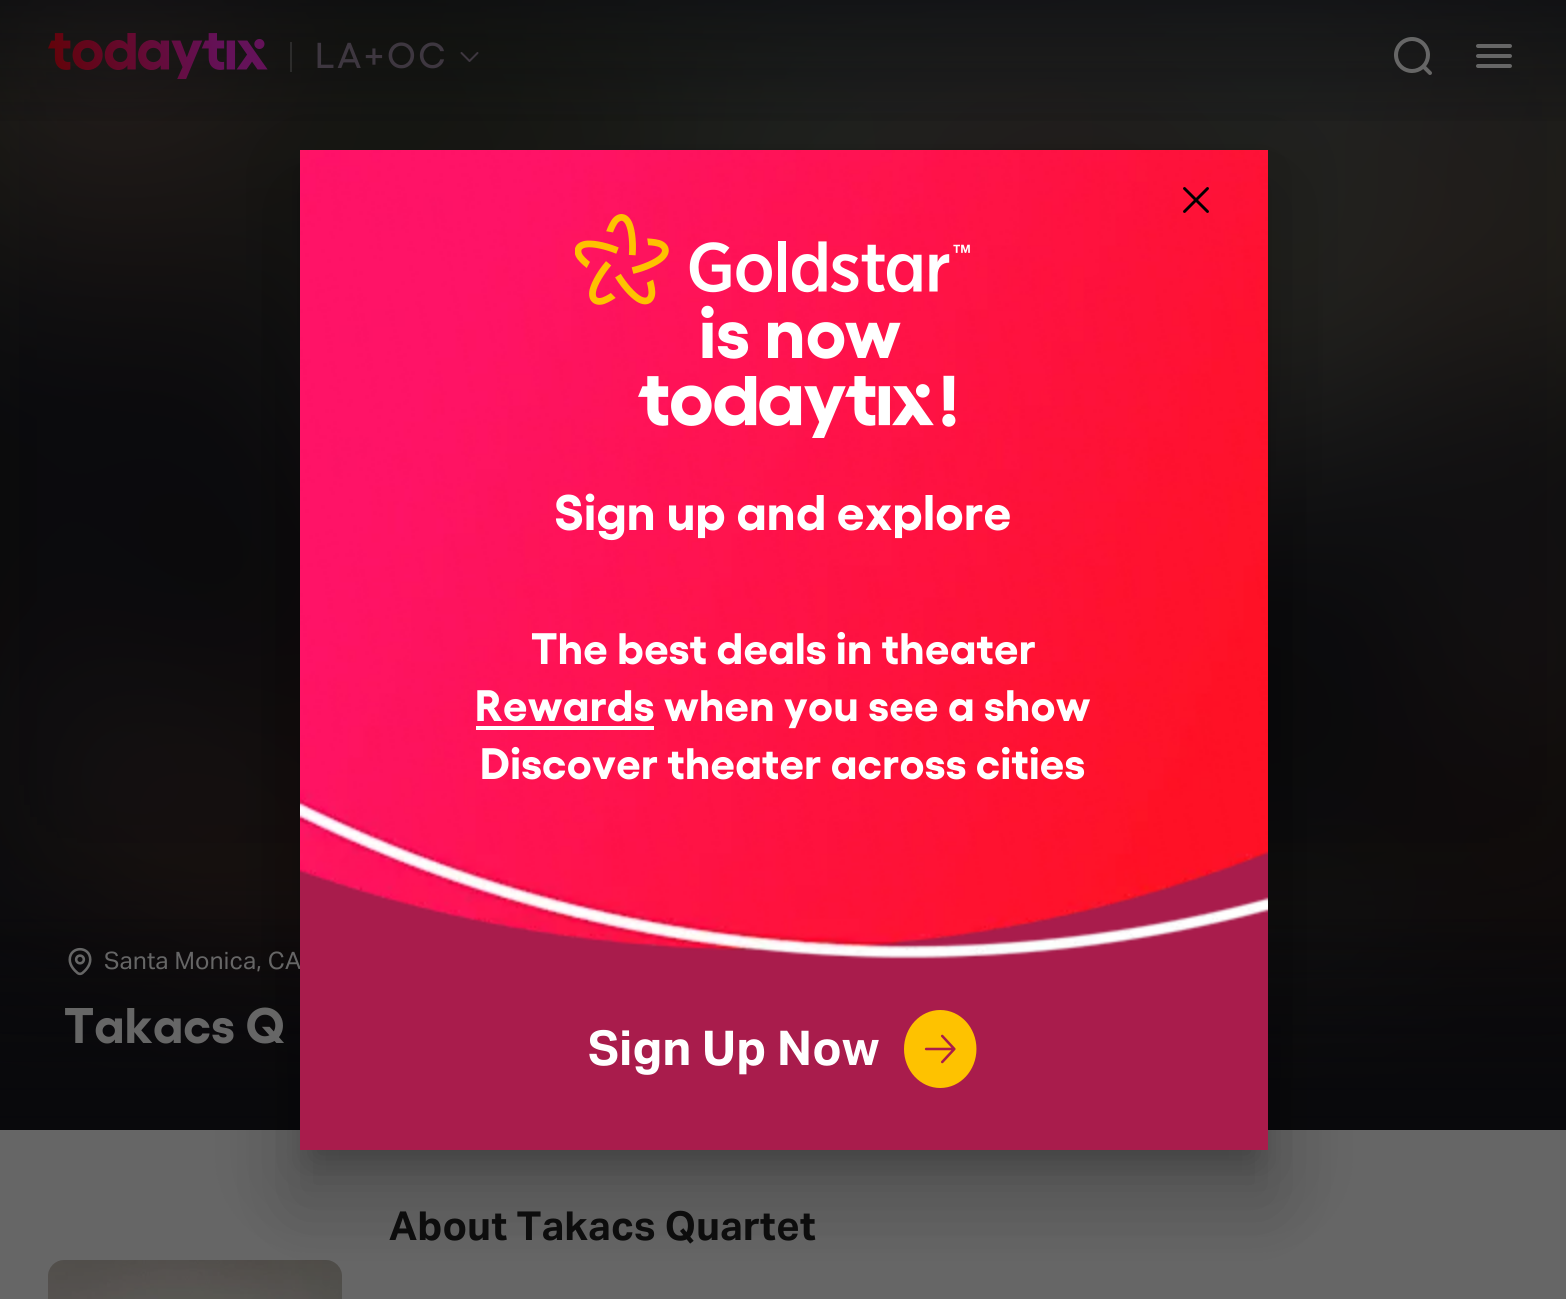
#include <cairo/cairo.h>
#include <math.h>
#include <stddef.h>

static cairo_t *cr;

static void rgb(unsigned color)
{
	cairo_set_source_rgb(cr, (color >> 16) / 255.0, (color >> 8 & 255) / 255.0, (color & 255) / 255.0);
}

static void tracked(double x, double y, const char *s, double letter, double word)
{
	cairo_move_to(cr, x, y);
	while (*s) {
		char ch[5] = {0};
		int n = 0;
		do ch[n++] = *s++; while ((*s & 0xC0) == 0x80);
		cairo_show_text(cr, ch);
		cairo_rel_move_to(cr, letter + word * (*ch == ' '), 0);
	}
}

static void rrect(double x, double y, double w, double h, double r)
{
	cairo_new_sub_path(cr);
	cairo_arc(cr, x + w - r, y + h - r, r, 0, M_PI / 2);
	cairo_arc(cr, x + r, y + h - r, r, M_PI / 2, M_PI);
	cairo_arc(cr, x + r, y + r, r, M_PI, 1.5 * M_PI);
	cairo_arc(cr, x + w - r, y + r, r, 1.5 * M_PI, 2 * M_PI);
	cairo_close_path(cr);
}

static void soft_shadow(double x, double y, double w, double h, double r, double blur, double alpha)
{
	cairo_push_group_with_content(cr, CAIRO_CONTENT_ALPHA);
	cairo_set_operator(cr, CAIRO_OPERATOR_SOURCE);
	for (int i = 15; i >= -15 && fmin(w, h) + blur * i / 3 > 0; i -= 2) {
		double e = blur * i / 6;
		cairo_set_source_rgba(cr, 0, 0, 0, alpha * erfc((i - 1) / 8.5) / 2);
		rrect(x - e, y - e, w + 2 * e, h + 2 * e, fmax(0, fmin(r + e + blur * .6, fmin(w, h) / 2 + e)));
		cairo_fill(cr);
	}
	cairo_pattern_t *soft = cairo_pop_group(cr);
	cairo_mask(cr, soft);
	cairo_pattern_destroy(soft);
}

static void image(const char *path, double x, double y, double w, double h)
{
	cairo_surface_t *image = cairo_image_surface_create_from_png(path);
	cairo_save(cr);
	cairo_set_source_surface(cr, image, x, y);
	cairo_rectangle(cr, x, y, w, h);
	cairo_fill(cr);
	cairo_restore(cr);
	cairo_surface_destroy(image);
}

int main(void) {
	cairo_surface_t *surface = cairo_image_surface_create(CAIRO_FORMAT_RGB24, 1566, 1299);
	cr = cairo_create(surface);
	cairo_font_options_t *options = cairo_font_options_create();
	cairo_font_options_set_hint_metrics(options, CAIRO_HINT_METRICS_OFF);
	cairo_font_options_set_hint_style(options, CAIRO_HINT_STYLE_NONE);
	cairo_set_font_options(cr, options);
	cairo_set_miter_limit(cr, 4);
	cairo_pattern_t *gradient;
	rgb(0x666666);
	cairo_paint(cr);
	rgb(0x09090c);
	cairo_rectangle(cr, 0, 0, 1566, 1129);
	cairo_fill(cr);
	image("img/4.png", 0, 0, 1566, 1078);
	gradient = cairo_pattern_create_linear(783, 154, 783, 0);
	cairo_pattern_add_color_stop_rgba(gradient, 0, 0.035, 0.035, 0.047, 0);
	cairo_pattern_add_color_stop_rgba(gradient, 1, 0.035, 0.035, 0.047, 0.5);
	cairo_set_source(cr, gradient);
	cairo_pattern_destroy(gradient);
	cairo_rectangle(cr, 0, 0, 1566, 121);
	cairo_fill(cr);
	image("img/1.png", 48, 33, 220, 46);
	cairo_set_source_rgba(cr, 0.4, 0.4, 0.4, 0.3);
	cairo_rectangle(cr, 290, 42, 2, 30);
	cairo_fill(cr);
	cairo_new_path(cr);
	cairo_move_to(cr, 461.5, 53);
	cairo_line_to(cr, 469.5, 61);
	cairo_line_to(cr, 477.5, 53);
	rgb(0x3e3740);
	cairo_set_line_cap(cr, CAIRO_LINE_CAP_ROUND);
	cairo_set_line_join(cr, CAIRO_LINE_JOIN_ROUND);
	cairo_stroke(cr);
	image("img/2.png", 1394, 37, 38, 38);
	image("img/3.png", 1476, 44, 36, 24);
	gradient = cairo_pattern_create_linear(783, 880, 783, 1130);
	cairo_pattern_add_color_stop_rgba(gradient, 0, 0.035, 0.035, 0.047, 0);
	cairo_pattern_add_color_stop_rgba(gradient, 1, 0.035, 0.035, 0.047, 1);
	cairo_set_source(cr, gradient);
	cairo_pattern_destroy(gradient);
	cairo_rectangle(cr, 0, 919, 1566, 211);
	cairo_fill(cr);
	image("img/5.png", 68, 947, 24, 29);
	image("img/6.png", 48, 1260, 294, 39);
	rgb(0x000000);
	soft_shadow(284, 152, 1000, 1032, 0, 46, 0.12);
	soft_shadow(294, 192, 980, 1012, 0, 38, 0.14);
	soft_shadow(314, 186, 940, 972, 0, 15, 0.2);
	cairo_select_font_face(cr, "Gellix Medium", CAIRO_FONT_SLANT_NORMAL, CAIRO_FONT_WEIGHT_NORMAL);
	cairo_set_font_size(cr, 36);
	rgb(0x3e3740);
	tracked(315, 68, "LA+OC", 2.5, 0);
	cairo_select_font_face(cr, "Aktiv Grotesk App", CAIRO_FONT_SLANT_NORMAL, CAIRO_FONT_WEIGHT_NORMAL);
	cairo_set_font_size(cr, 24);
	rgb(0x666666);
	tracked(104, 969, "Santa Monica, CA", 0.3, 0);
	cairo_select_font_face(cr, "Gellix", CAIRO_FONT_SLANT_NORMAL, CAIRO_FONT_WEIGHT_BOLD);
	cairo_set_font_size(cr, 50);
	tracked(64, 1043, "Takacs Q", 0.3, 0);
	cairo_select_font_face(cr, "Aktiv Grotesk App", CAIRO_FONT_SLANT_NORMAL, CAIRO_FONT_WEIGHT_BOLD);
	cairo_set_font_size(cr, 40);
	rgb(0x0d0d0d);
	tracked(389, 1240, "About Takacs Quartet", 0.3, 0);
	rgb(0xa91c4c);
	cairo_rectangle(cr, 300, 851, 968, 299);
	cairo_fill(cr);
	image("img/7.png", 300, 150, 968, 809);
	cairo_new_path(cr);
	cairo_move_to(cr, 1184.5, 211.5);
	cairo_line_to(cr, 1207.5, 188.5);
	cairo_move_to(cr, 1184.5, 188.5);
	cairo_line_to(cr, 1207.5, 211.5);
	rgb(0x000000);
	cairo_set_line_width(cr, 2.9);
	cairo_stroke(cr);
	image("img/8.png", 575, 214, 395, 224);
	cairo_select_font_face(cr, "Gellix", CAIRO_FONT_SLANT_NORMAL, CAIRO_FONT_WEIGHT_BOLD);
	cairo_set_font_size(cr, 50);
	rgb(0xffffff);
	tracked(554, 530, "Sign up and explore", 0.3, 0);
	cairo_set_font_size(cr, 44);
	tracked(531, 664, "The best deals in theater", 0.3, 0);
	cairo_rectangle(cr, 476, 726, 178, 4);
	cairo_fill(cr);
	tracked(475, 721, "Rewards when you see a show", 0.3, 0);
	tracked(480, 779, "Discover theater across cities", 0.3, 0);
	cairo_select_font_face(cr, "Aktiv Grotesk App", CAIRO_FONT_SLANT_NORMAL, CAIRO_FONT_WEIGHT_BOLD);
	cairo_set_font_size(cr, 48);
	tracked(588, 1065, "Sign Up Now", 0.3, 0);
	image("img/9.png", 904, 1010, 73, 78);
	cairo_surface_write_to_png(surface, "page.png");
	cairo_font_options_destroy(options);
	cairo_destroy(cr);
	cairo_surface_destroy(surface);
	return 0;
}
